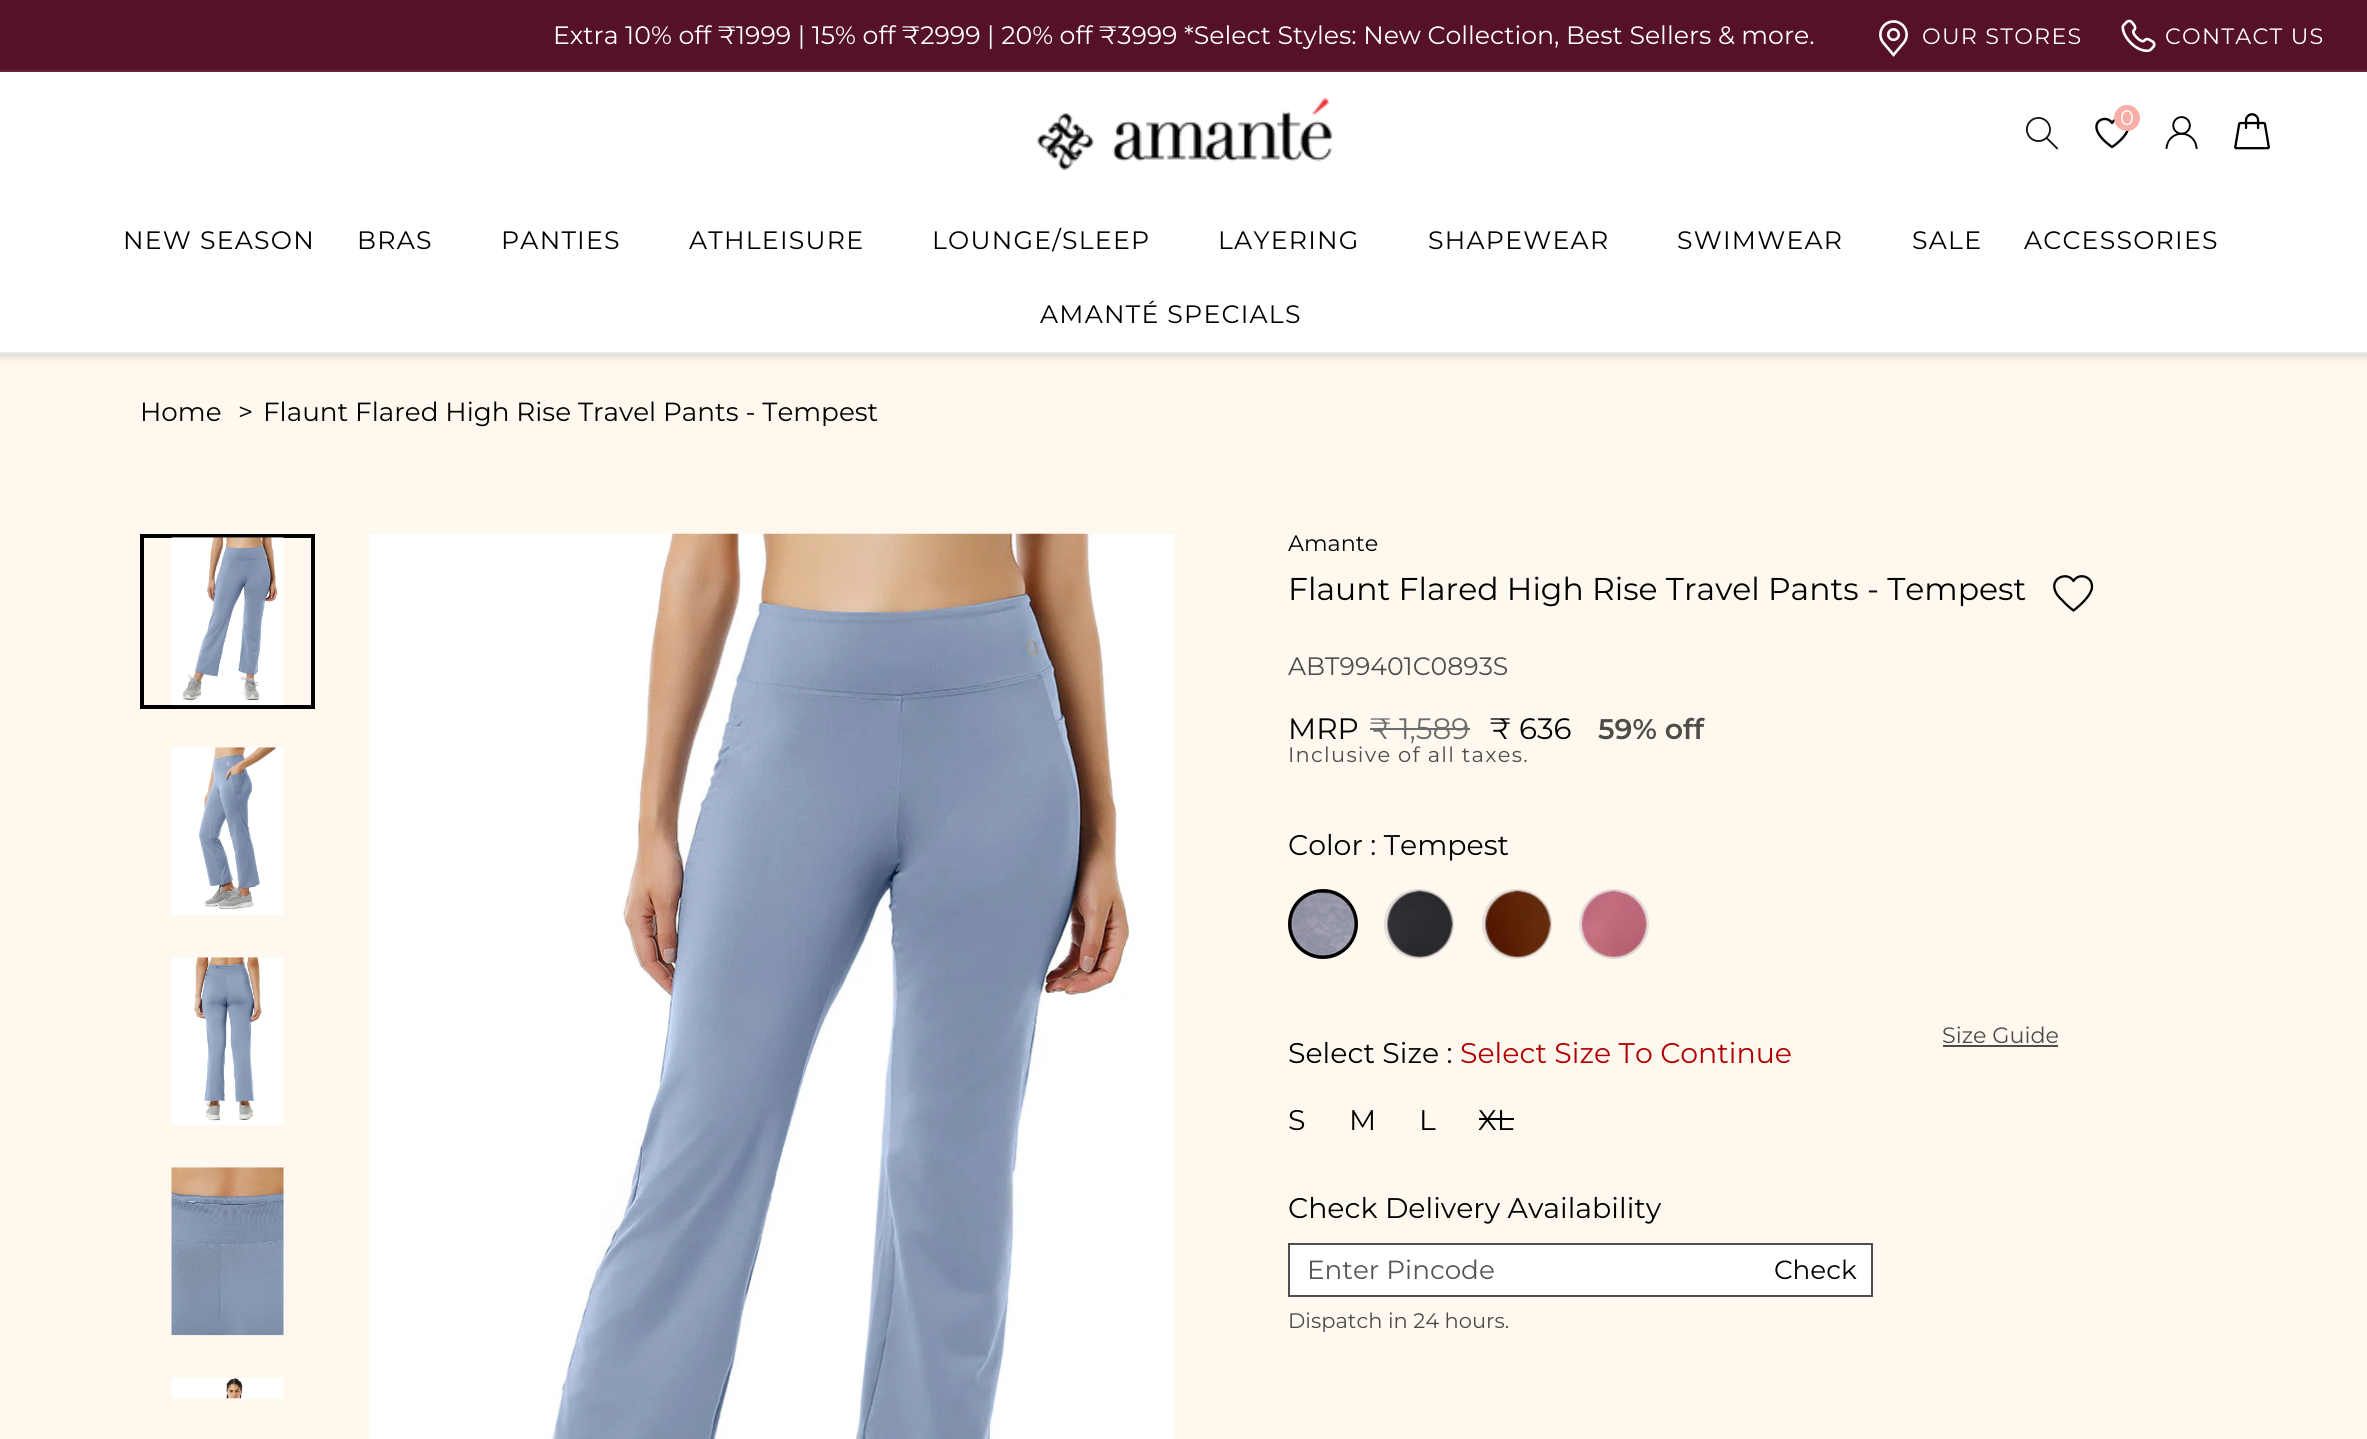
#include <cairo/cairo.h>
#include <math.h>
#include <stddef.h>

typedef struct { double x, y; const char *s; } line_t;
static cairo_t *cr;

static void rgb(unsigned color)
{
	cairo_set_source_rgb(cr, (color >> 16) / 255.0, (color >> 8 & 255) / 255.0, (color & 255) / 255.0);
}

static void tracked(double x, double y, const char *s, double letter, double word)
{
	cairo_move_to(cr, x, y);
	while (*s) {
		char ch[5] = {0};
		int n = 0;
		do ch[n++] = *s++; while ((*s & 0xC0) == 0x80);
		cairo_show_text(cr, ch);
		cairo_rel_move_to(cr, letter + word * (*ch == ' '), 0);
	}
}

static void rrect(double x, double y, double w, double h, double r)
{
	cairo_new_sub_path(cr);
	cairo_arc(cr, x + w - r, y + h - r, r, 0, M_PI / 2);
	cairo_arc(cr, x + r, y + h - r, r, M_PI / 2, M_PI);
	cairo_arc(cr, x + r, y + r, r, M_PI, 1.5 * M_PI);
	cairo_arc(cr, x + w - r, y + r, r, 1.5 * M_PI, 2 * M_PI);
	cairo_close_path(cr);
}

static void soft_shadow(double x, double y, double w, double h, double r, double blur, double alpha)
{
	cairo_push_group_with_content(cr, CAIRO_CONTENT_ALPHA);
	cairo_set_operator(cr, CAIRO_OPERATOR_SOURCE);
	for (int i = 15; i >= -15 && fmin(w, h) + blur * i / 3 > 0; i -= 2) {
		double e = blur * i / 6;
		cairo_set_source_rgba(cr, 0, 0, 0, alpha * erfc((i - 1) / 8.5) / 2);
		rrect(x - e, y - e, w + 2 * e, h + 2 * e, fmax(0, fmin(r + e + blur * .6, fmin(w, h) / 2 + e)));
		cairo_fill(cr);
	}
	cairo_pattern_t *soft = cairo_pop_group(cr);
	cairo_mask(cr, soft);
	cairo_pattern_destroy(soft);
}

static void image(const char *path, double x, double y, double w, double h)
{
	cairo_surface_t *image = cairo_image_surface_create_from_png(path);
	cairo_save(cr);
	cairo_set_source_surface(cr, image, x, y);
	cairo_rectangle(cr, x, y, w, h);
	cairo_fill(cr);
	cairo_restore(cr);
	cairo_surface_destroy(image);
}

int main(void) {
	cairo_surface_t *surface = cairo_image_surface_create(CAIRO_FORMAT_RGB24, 2367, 1439);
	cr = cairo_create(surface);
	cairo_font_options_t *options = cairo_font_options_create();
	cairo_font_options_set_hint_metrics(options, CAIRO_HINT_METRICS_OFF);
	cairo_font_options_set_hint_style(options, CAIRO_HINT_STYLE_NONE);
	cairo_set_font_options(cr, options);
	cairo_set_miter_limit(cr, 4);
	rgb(0xfff8ef);
	cairo_paint(cr);
	rgb(0x000000);
	soft_shadow(0, 72, 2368, 282, 0, 5, 0.25);
	rgb(0x56112a);
	cairo_rectangle(cr, 0, 0, 2367, 70);
	cairo_fill(cr);
	rgb(0x64243b);
	cairo_rectangle(cr, 0, 70, 2367, 2);
	cairo_fill(cr);
	image("img/1.png", 1879, 20, 29, 37);
	image("img/2.png", 2121, 19, 35, 34);
	rgb(0xffffff);
	cairo_rectangle(cr, 0, 72, 2367, 280);
	cairo_fill(cr);
	rgb(0xececec);
	cairo_rectangle(cr, 0, 352, 2367, 2);
	cairo_fill(cr);
	image("img/3.png", 1037, 97, 296, 74);
	image("img/4.png", 2026, 117, 32, 33);
	cairo_new_path(cr);
	cairo_move_to(cr, 2128, 127.5);
	cairo_curve_to(cr, 2128, 118.5, 2116.5, 115.5, 2112, 123);
	cairo_curve_to(cr, 2105.5, 112, 2080.5, 124.5, 2112, 147);
	cairo_curve_to(cr, 2117.5, 143.5, 2128, 134.5, 2128, 127.5);
	cairo_close_path(cr);
	rgb(0x000000);
	cairo_set_line_width(cr, 2.4);
	cairo_set_line_cap(cr, CAIRO_LINE_CAP_ROUND);
	cairo_set_line_join(cr, CAIRO_LINE_JOIN_ROUND);
	cairo_stroke(cr);
	rgb(0xf7aea6);
	cairo_arc(cr, 2127, 118, 13, 0, 2 * M_PI);
	cairo_fill(cr);
	image("img/5.png", 2165, 116, 33, 33);
	image("img/6.png", 2234, 113, 36, 37);
	cairo_rectangle(cr, 142, 536, 171, 171);
	rgb(0x000000);
	cairo_set_line_width(cr, 4);
	cairo_set_line_cap(cr, CAIRO_LINE_CAP_BUTT);
	cairo_set_line_join(cr, CAIRO_LINE_JOIN_MITER);
	cairo_stroke(cr);
	image("img/7.png", 171, 537, 113, 169);
	image("img/8.png", 171, 747, 113, 168);
	image("img/9.png", 171, 957, 113, 168);
	image("img/10.png", 171, 1167, 113, 169);
	image("img/11.png", 171, 1377, 113, 22);
	image("img/12.png", 369, 533, 806, 906);
	cairo_new_path(cr);
	cairo_move_to(cr, 2092, 586.5);
	cairo_curve_to(cr, 2092, 576, 2078.5, 572.5, 2073.5, 581);
	cairo_curve_to(cr, 2067.5, 571.5, 2052, 577.5, 2054.5, 588.5);
	cairo_curve_to(cr, 2055.5, 593.5, 2059, 597.5, 2062.5, 600.5);
	cairo_curve_to(cr, 2065.5, 604, 2069.5, 607.5, 2073.5, 610.5);
	cairo_curve_to(cr, 2080, 605.5, 2092, 595, 2092, 586.5);
	cairo_close_path(cr);
	cairo_set_line_width(cr, 2.3);
	cairo_set_line_cap(cr, CAIRO_LINE_CAP_ROUND);
	cairo_set_line_join(cr, CAIRO_LINE_JOIN_ROUND);
	cairo_stroke(cr);
	rgb(0x6d6d6d);
	cairo_rectangle(cr, 1370, 728, 100, 2);
	cairo_fill(cr);
	cairo_arc(cr, 1323, 924, 33, 0, 2 * M_PI);
	rgb(0x000000);
	cairo_set_line_width(cr, 4);
	cairo_set_line_cap(cr, CAIRO_LINE_CAP_BUTT);
	cairo_set_line_join(cr, CAIRO_LINE_JOIN_MITER);
	cairo_stroke(cr);
	image("img/13.png", 1291, 892, 64, 64);
	cairo_arc(cr, 1419, 924, 34, 0, 2 * M_PI);
	rgb(0xe1dbd3);
	cairo_set_line_width(cr, 2);
	cairo_stroke(cr);
	image("img/14.png", 1385, 890, 68, 68);
	cairo_arc(cr, 1517, 924, 34, 0, 2 * M_PI);
	cairo_stroke(cr);
	image("img/15.png", 1483, 890, 68, 68);
	cairo_arc(cr, 1614, 924, 34, 0, 2 * M_PI);
	cairo_stroke(cr);
	image("img/16.png", 1580, 890, 67, 68);
	rgb(0x4d4c49);
	cairo_rectangle(cr, 1943, 1045, 115, 2);
	cairo_fill(cr);
	rgb(0x000000);
	cairo_rectangle(cr, 1479, 1118, 35, 2);
	cairo_fill(cr);
	rgb(0xffffff);
	cairo_rectangle(cr, 1289, 1244, 583, 52);
	cairo_fill_preserve(cr);
	rgb(0x4d4d4d);
	cairo_stroke(cr);
	cairo_select_font_face(cr, "Montserrat", CAIRO_FONT_SLANT_NORMAL, CAIRO_FONT_WEIGHT_NORMAL);
	cairo_set_font_size(cr, 25.2);
	rgb(0xffffff);
	cairo_move_to(cr, 553, 44);
	cairo_show_text(cr, "Extra 10% off ₹1999 | 15% off ₹2999 | 20% off ₹3999 *Select Styles: New Collection, Best Sellers & more.");
	cairo_set_font_size(cr, 22.25);
	tracked(1922, 44, "OUR STORES", 1.25, 0);
	tracked(2165, 44, "CONTACT US", 1.25, 0);
	cairo_set_font_size(cr, 21);
	tracked(2120, 125, "0", 1.25, 0);
	cairo_set_font_size(cr, 25.2);
	rgb(0x000000);
	{
		static const line_t items[] = {
			{123, 249, "NEW SEASON"},
			{357, 249, "BRAS"},
			{501, 249, "PANTIES"},
			{689, 249, "ATHLEISURE"},
			{932, 249, "LOUNGE/SLEEP"},
			{1218, 249, "LAYERING"},
			{1428, 249, "SHAPEWEAR"},
			{1677, 249, "SWIMWEAR"},
			{1912, 249, "SALE"},
			{2024, 249, "ACCESSORIES"},
			{1040, 323, "AMANTÉ SPECIALS"},
		};
		for (size_t i = 0; i < sizeof items / sizeof *items; i++) {
			tracked(items[i].x, items[i].y, items[i].s, 1.25, 0);
		}
	}
	cairo_set_font_size(cr, 26.25);
	cairo_move_to(cr, 140, 421);
	cairo_show_text(cr, "Home");
	tracked(238, 421, ">", 1, 0);
	cairo_move_to(cr, 263, 421);
	cairo_show_text(cr, "Flaunt Flared High Rise Travel Pants - Tempest");
	cairo_set_font_size(cr, 22.25);
	cairo_move_to(cr, 1288, 551);
	cairo_show_text(cr, "Amante");
	cairo_set_font_size(cr, 31.5);
	cairo_move_to(cr, 1288, 600);
	cairo_show_text(cr, "Flaunt Flared High Rise Travel Pants - Tempest");
	cairo_set_font_size(cr, 25.2);
	rgb(0x4d4c49);
	cairo_move_to(cr, 1288, 675);
	cairo_show_text(cr, "ABT99401C0893S");
	cairo_set_font_size(cr, 29.5);
	rgb(0x000000);
	cairo_move_to(cr, 1288, 739);
	cairo_show_text(cr, "MRP");
	rgb(0x6d6d6d);
	cairo_move_to(cr, 1370, 739);
	cairo_show_text(cr, "₹ 1,589");
	rgb(0x000000);
	cairo_move_to(cr, 1490, 739);
	cairo_show_text(cr, "₹ 636");
	cairo_select_font_face(cr, "Montserrat SemiBold", CAIRO_FONT_SLANT_NORMAL, CAIRO_FONT_WEIGHT_NORMAL);
	cairo_set_font_size(cr, 28.4);
	rgb(0x4d4c49);
	cairo_move_to(cr, 1598, 739);
	cairo_show_text(cr, "59% off");
	cairo_select_font_face(cr, "Montserrat", CAIRO_FONT_SLANT_NORMAL, CAIRO_FONT_WEIGHT_NORMAL);
	cairo_set_font_size(cr, 21);
	tracked(1288, 762, "Inclusive of all taxes.", 1.25, 0);
	cairo_set_font_size(cr, 28.4);
	rgb(0x000000);
	cairo_move_to(cr, 1288, 855);
	cairo_show_text(cr, "Color : Tempest");
	cairo_set_font_size(cr, 22.25);
	rgb(0x4d4c49);
	cairo_move_to(cr, 1942, 1043);
	cairo_show_text(cr, "Size Guide");
	cairo_set_font_size(cr, 28.4);
	rgb(0x000000);
	cairo_move_to(cr, 1288, 1063);
	cairo_show_text(cr, "Select Size :");
	rgb(0xb10000);
	cairo_move_to(cr, 1460, 1063);
	cairo_show_text(cr, "Select Size To Continue");
	rgb(0x000000);
	{
		static const line_t items[] = {
			{1288, 1130, "S"},
			{1349, 1130, "M"},
			{1419, 1130, "L"},
			{1478, 1130, "XL"},
			{1288, 1218, "Check Delivery Availability"},
		};
		for (size_t i = 0; i < sizeof items / sizeof *items; i++) {
			cairo_move_to(cr, items[i].x, items[i].y);
			cairo_show_text(cr, items[i].s);
		}
	}
	cairo_set_font_size(cr, 26.25);
	rgb(0x555555);
	cairo_move_to(cr, 1307, 1279);
	cairo_show_text(cr, "Enter Pincode");
	rgb(0x000000);
	cairo_move_to(cr, 1774, 1279);
	cairo_show_text(cr, "Check");
	cairo_set_font_size(cr, 21);
	rgb(0x4d4c49);
	cairo_move_to(cr, 1288, 1328);
	cairo_show_text(cr, "Dispatch in 24 hours.");
	cairo_surface_write_to_png(surface, "page.png");
	cairo_font_options_destroy(options);
	cairo_destroy(cr);
	cairo_surface_destroy(surface);
	return 0;
}
